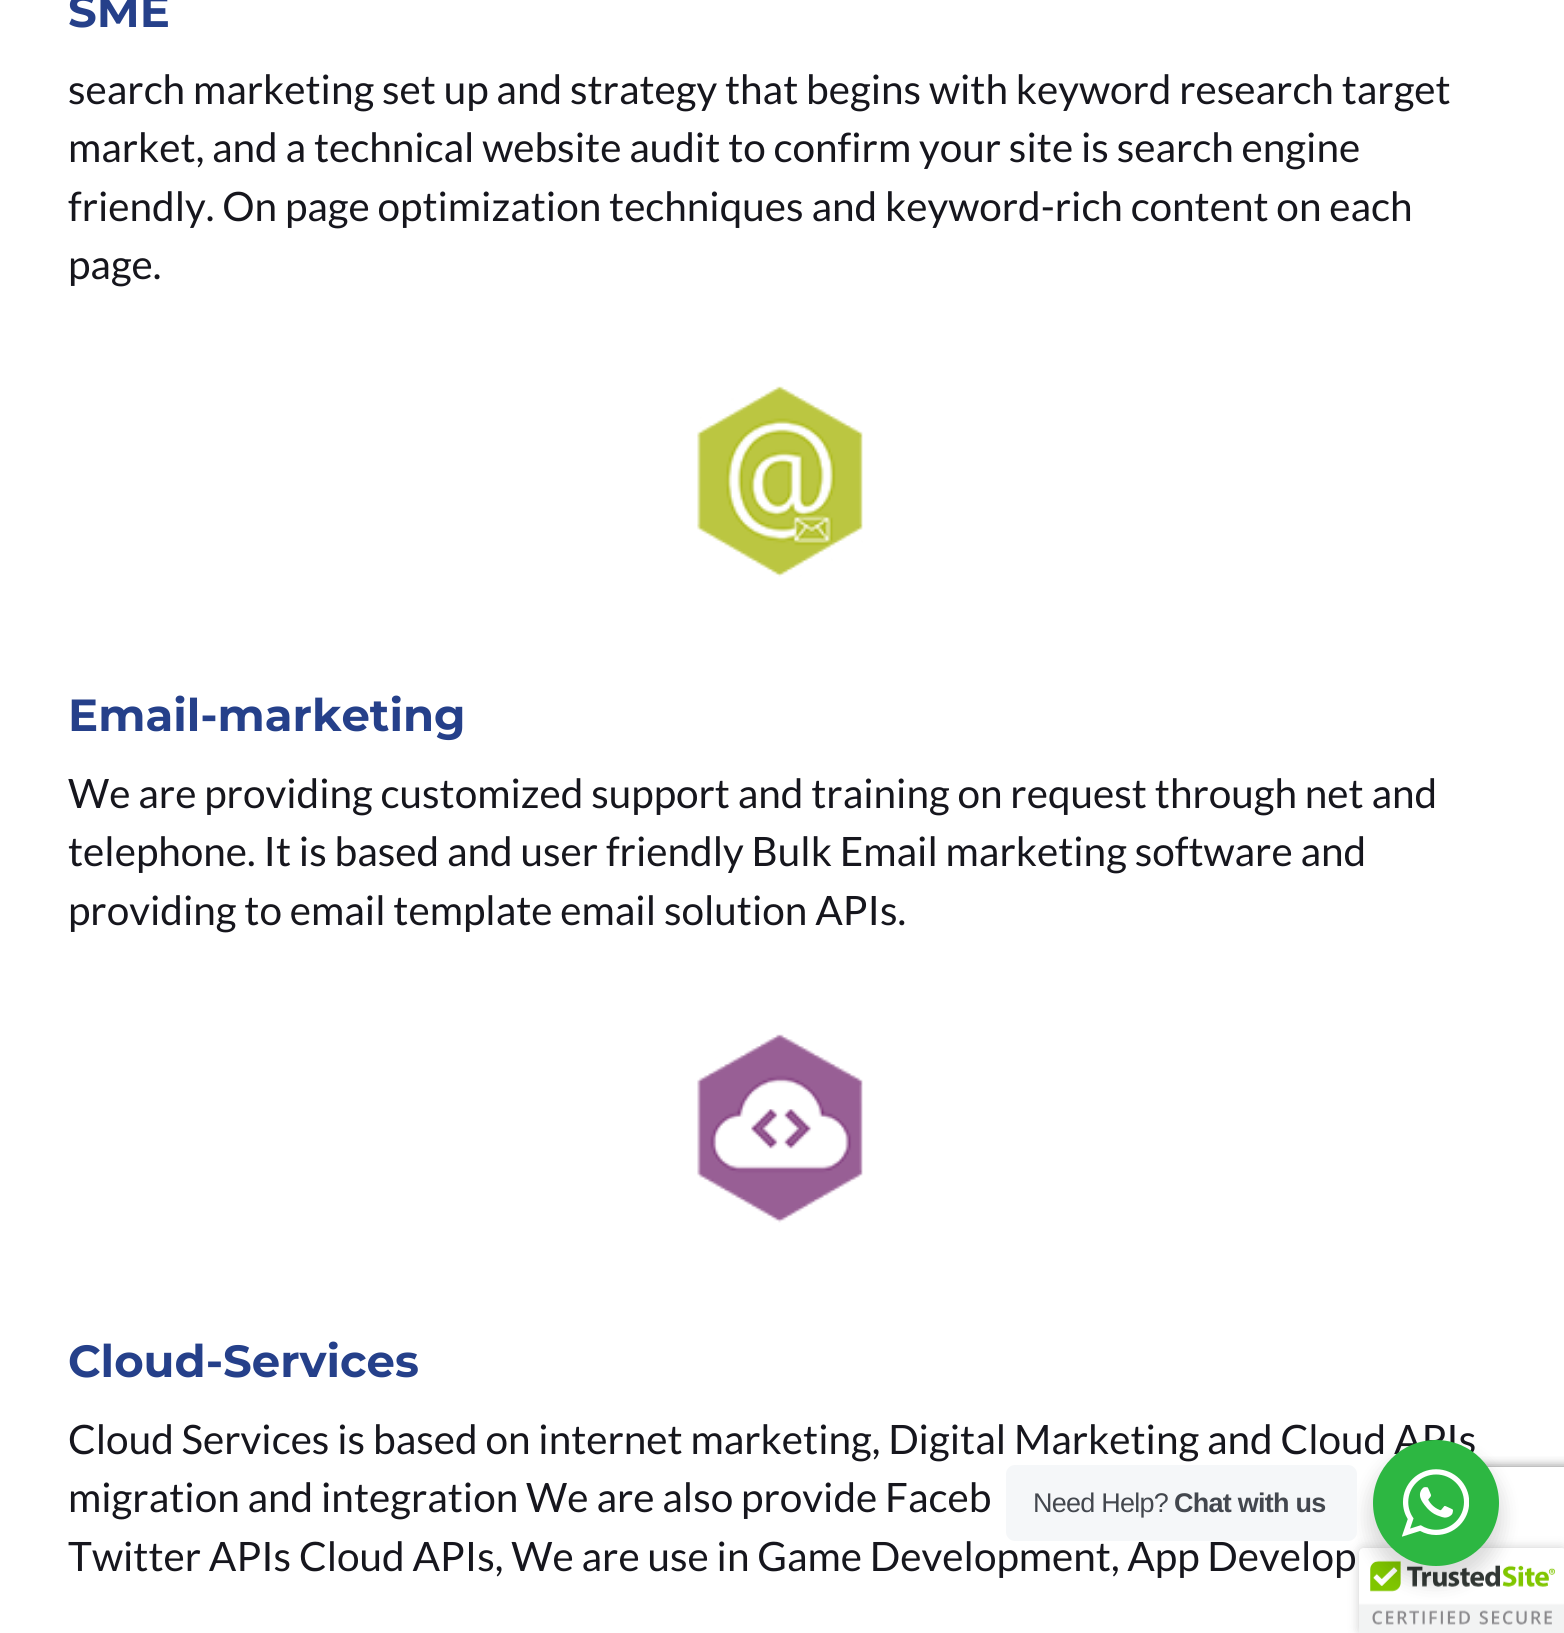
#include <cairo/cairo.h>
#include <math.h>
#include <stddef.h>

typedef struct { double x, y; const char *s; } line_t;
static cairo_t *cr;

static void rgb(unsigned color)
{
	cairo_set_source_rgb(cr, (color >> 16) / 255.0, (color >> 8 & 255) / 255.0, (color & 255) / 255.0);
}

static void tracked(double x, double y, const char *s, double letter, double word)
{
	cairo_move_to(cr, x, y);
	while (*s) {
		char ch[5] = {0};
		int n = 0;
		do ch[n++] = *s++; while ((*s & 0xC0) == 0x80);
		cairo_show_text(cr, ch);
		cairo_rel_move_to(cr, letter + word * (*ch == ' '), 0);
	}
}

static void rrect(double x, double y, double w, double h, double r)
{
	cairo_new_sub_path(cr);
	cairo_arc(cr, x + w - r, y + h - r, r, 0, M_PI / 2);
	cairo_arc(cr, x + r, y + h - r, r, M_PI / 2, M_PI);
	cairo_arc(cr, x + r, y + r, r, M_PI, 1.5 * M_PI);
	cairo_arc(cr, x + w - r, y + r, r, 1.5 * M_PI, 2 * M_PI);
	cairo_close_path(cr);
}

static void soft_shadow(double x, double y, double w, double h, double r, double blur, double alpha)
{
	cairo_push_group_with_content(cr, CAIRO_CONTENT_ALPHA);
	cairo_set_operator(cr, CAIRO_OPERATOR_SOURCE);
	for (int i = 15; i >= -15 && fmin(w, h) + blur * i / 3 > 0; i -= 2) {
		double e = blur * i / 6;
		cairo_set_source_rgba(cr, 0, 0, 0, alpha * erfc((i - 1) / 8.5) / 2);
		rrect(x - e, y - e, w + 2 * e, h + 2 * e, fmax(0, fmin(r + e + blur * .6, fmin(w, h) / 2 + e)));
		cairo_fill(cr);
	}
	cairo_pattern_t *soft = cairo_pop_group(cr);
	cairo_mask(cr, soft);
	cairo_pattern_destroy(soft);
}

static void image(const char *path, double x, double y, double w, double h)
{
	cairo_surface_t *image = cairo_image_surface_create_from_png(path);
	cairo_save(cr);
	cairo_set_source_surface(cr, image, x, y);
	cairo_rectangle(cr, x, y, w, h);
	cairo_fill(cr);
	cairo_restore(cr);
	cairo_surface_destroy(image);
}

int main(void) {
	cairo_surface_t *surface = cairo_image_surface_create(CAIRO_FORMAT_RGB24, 1564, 1633);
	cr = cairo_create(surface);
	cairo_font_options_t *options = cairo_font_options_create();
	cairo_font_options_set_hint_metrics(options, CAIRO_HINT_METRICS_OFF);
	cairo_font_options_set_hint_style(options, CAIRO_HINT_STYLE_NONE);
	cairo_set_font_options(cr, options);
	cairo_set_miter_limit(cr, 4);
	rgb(0xffffff);
	cairo_paint(cr);
	image("img/1.png", 697, 386, 166, 191);
	image("img/2.png", 697, 1034, 166, 189);
	cairo_save(cr);
	cairo_rectangle(cr, 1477, 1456, 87, 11);
	cairo_clip(cr);
	rgb(0x808080);
	soft_shadow(1409, 1467, 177, 135, 5, 5.5, 1);
	cairo_restore(cr);
	rgb(0x000000);
	soft_shadow(1359, 1548, 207, 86, 5, 5.5, 0.2);
	rgb(0xffffff);
	cairo_new_path(cr);
	cairo_move_to(cr, 1364, 1548);
	cairo_line_to(cr, 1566, 1548);
	cairo_line_to(cr, 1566, 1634);
	cairo_line_to(cr, 1359, 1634);
	cairo_line_to(cr, 1359, 1553);
	cairo_curve_to(cr, 1359, 1550, 1361, 1548, 1364, 1548);
	cairo_close_path(cr);
	cairo_fill(cr);
	image("img/4.png", 1359, 1548, 205, 85);
	rgb(0x000000);
	soft_shadow(1368, 1449, 135, 135, 67.5, 9, 0.14);
	rgb(0xf5f7f9);
	rrect(1006, 1465, 351, 76, 9);
	cairo_fill(cr);
	cairo_select_font_face(cr, "Montserrat", CAIRO_FONT_SLANT_NORMAL, CAIRO_FONT_WEIGHT_BOLD);
	cairo_set_font_size(cr, 45);
	rgb(0x25408a);
	cairo_move_to(cr, 68, 27);
	cairo_show_text(cr, "SME");
	cairo_select_font_face(cr, "Lato", CAIRO_FONT_SLANT_NORMAL, CAIRO_FONT_WEIGHT_NORMAL);
	cairo_set_font_size(cr, 40.5);
	rgb(0x16161d);
	{
		static const line_t items[] = {
			{68, 104, "search marketing set up and strategy that begins with keyword research target"},
			{68, 162, "market, and a technical website audit to confirm your site is search engine"},
			{68, 221, "friendly. On page optimization techniques and keyword-rich content on each"},
			{68, 279, "page."},
		};
		for (size_t i = 0; i < sizeof items / sizeof *items; i++) {
			cairo_move_to(cr, items[i].x, items[i].y);
			cairo_show_text(cr, items[i].s);
		}
	}
	cairo_select_font_face(cr, "Montserrat", CAIRO_FONT_SLANT_NORMAL, CAIRO_FONT_WEIGHT_BOLD);
	cairo_set_font_size(cr, 45);
	rgb(0x25408a);
	cairo_move_to(cr, 68, 731);
	cairo_show_text(cr, "Email-marketing");
	cairo_select_font_face(cr, "Lato", CAIRO_FONT_SLANT_NORMAL, CAIRO_FONT_WEIGHT_NORMAL);
	cairo_set_font_size(cr, 40.5);
	rgb(0x16161d);
	{
		static const line_t items[] = {
			{68, 808, "We are providing customized support and training on request through net and"},
			{68, 866, "telephone. It is based and user friendly Bulk Email marketing software and"},
			{68, 925, "providing to email template email solution APIs."},
		};
		for (size_t i = 0; i < sizeof items / sizeof *items; i++) {
			cairo_move_to(cr, items[i].x, items[i].y);
			cairo_show_text(cr, items[i].s);
		}
	}
	cairo_select_font_face(cr, "Montserrat", CAIRO_FONT_SLANT_NORMAL, CAIRO_FONT_WEIGHT_BOLD);
	cairo_set_font_size(cr, 45);
	rgb(0x25408a);
	cairo_move_to(cr, 68, 1377);
	cairo_show_text(cr, "Cloud-Services");
	cairo_select_font_face(cr, "Lato", CAIRO_FONT_SLANT_NORMAL, CAIRO_FONT_WEIGHT_NORMAL);
	cairo_set_font_size(cr, 40.5);
	rgb(0x16161d);
	{
		static const line_t items[] = {
			{68, 1454, "Cloud Services is based on internet marketing, Digital Marketing and Cloud APIs"},
			{68, 1512, "migration and integration We are also provide Faceb"},
			{68, 1571, "Twitter APIs Cloud APIs, We are use in Game Development, App Develop"},
		};
		for (size_t i = 0; i < sizeof items / sizeof *items; i++) {
			cairo_move_to(cr, items[i].x, items[i].y);
			cairo_show_text(cr, items[i].s);
		}
	}
	cairo_select_font_face(cr, "Liberation Sans", CAIRO_FONT_SLANT_NORMAL, CAIRO_FONT_WEIGHT_NORMAL);
	cairo_set_font_size(cr, 27);
	rgb(0x43474e);
	tracked(1033, 1512, "Need Help?", -0.75, 0);
	cairo_select_font_face(cr, "Liberation Sans", CAIRO_FONT_SLANT_NORMAL, CAIRO_FONT_WEIGHT_BOLD);
	tracked(1174, 1512, "Chat with us", -0.75, 0);
	rgb(0x2db742);
	cairo_new_path(cr);
	cairo_arc(cr, 1436, 1503, 63, 0, 2 * M_PI);
	cairo_fill(cr);
	image("img/3.png", 1402, 1469, 67, 68);
	cairo_surface_write_to_png(surface, "page.png");
	cairo_font_options_destroy(options);
	cairo_destroy(cr);
	cairo_surface_destroy(surface);
	return 0;
}
